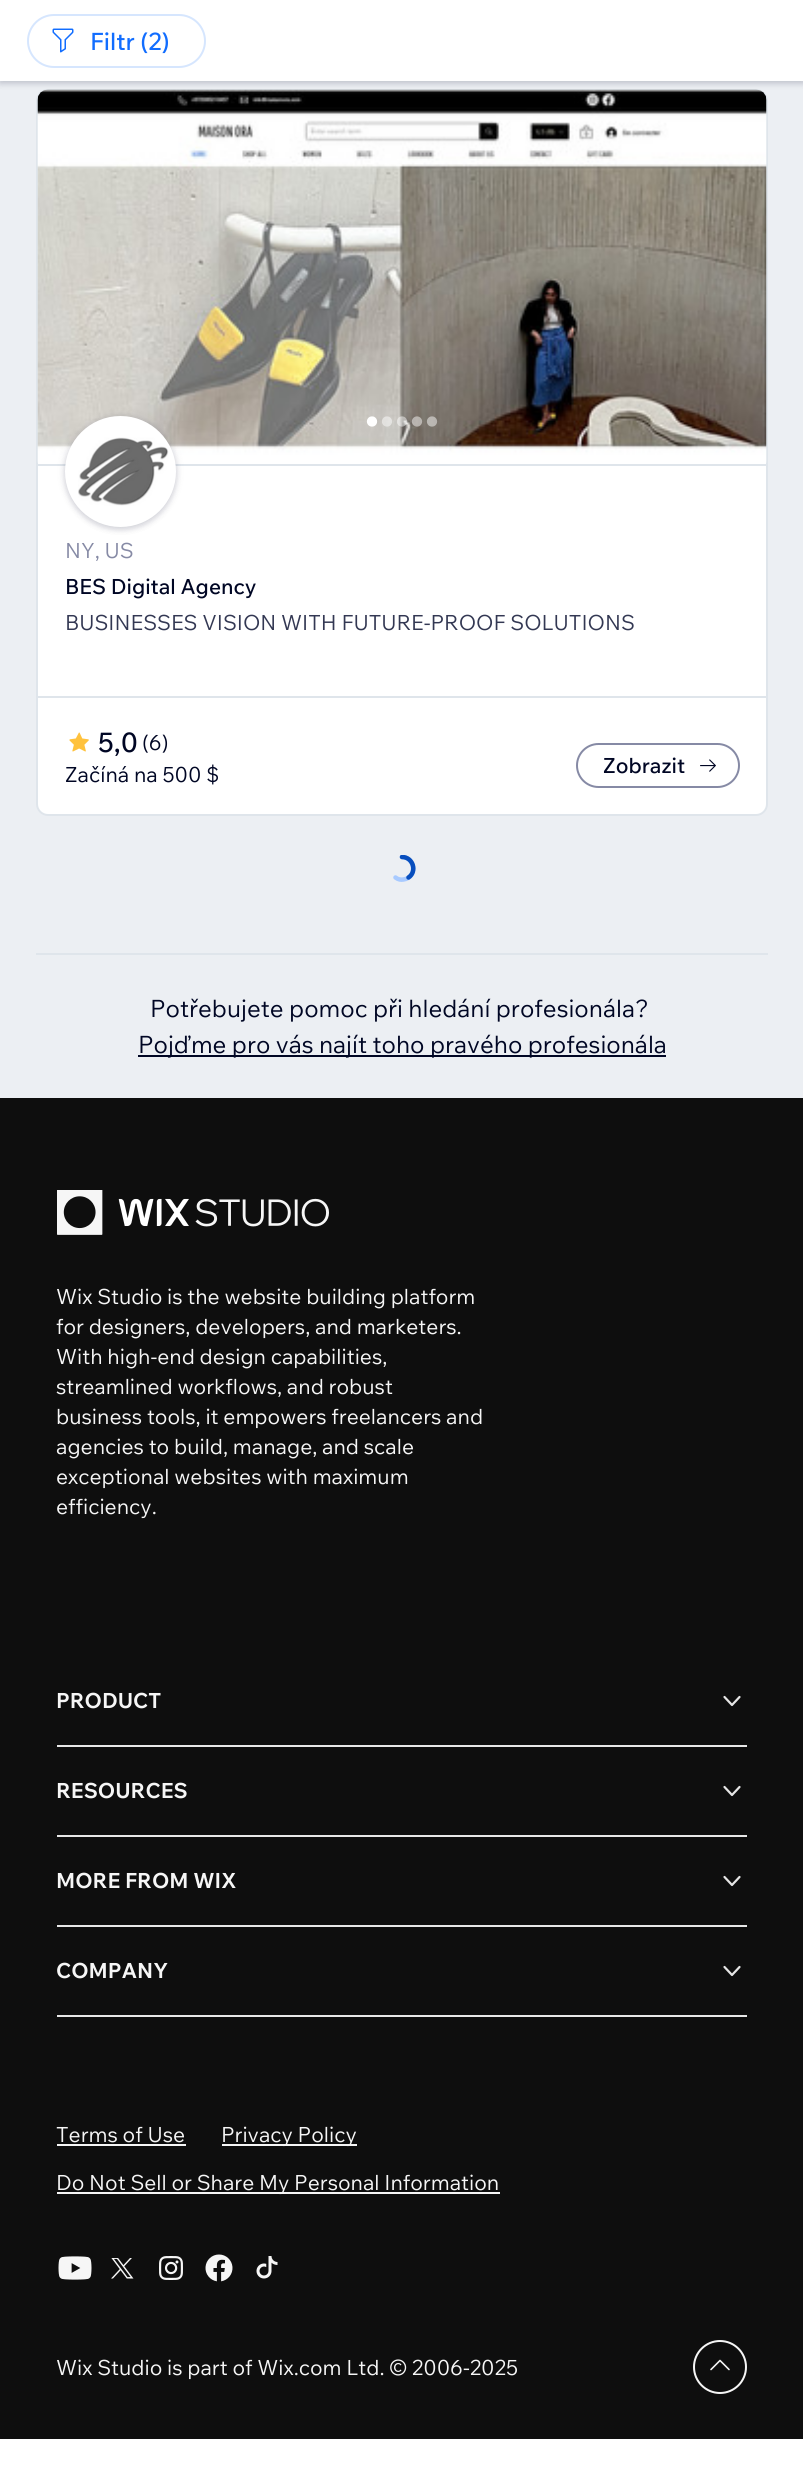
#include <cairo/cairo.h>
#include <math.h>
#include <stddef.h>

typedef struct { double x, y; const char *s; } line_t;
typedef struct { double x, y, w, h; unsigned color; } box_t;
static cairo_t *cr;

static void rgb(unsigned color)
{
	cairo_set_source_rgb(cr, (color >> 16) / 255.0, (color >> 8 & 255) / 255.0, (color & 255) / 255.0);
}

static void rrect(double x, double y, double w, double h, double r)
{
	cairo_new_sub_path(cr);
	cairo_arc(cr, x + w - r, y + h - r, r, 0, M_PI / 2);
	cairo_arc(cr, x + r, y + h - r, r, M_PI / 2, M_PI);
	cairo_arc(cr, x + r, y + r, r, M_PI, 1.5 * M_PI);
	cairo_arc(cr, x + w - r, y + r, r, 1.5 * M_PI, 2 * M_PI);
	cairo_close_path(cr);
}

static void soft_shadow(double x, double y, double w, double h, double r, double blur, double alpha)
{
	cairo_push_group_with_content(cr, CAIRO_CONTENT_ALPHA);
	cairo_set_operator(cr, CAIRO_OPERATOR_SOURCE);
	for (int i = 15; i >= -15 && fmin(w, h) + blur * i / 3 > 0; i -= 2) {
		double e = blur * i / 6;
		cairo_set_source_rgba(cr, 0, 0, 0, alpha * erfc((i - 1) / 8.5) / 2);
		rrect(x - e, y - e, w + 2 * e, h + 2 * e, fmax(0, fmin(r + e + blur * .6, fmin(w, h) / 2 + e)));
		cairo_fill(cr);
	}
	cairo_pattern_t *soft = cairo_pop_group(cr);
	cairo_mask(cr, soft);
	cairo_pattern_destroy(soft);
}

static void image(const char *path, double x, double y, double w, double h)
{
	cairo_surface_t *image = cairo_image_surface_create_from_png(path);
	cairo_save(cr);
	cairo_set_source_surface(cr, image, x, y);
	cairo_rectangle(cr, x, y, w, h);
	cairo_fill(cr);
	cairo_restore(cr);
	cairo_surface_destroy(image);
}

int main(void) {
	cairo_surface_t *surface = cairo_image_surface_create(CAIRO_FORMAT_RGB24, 803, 2465);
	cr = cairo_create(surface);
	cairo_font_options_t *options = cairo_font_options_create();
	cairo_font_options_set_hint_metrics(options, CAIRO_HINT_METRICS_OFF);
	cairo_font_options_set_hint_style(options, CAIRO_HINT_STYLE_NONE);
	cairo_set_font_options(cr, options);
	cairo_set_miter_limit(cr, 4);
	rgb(0xffffff);
	cairo_paint(cr);
	rgb(0xeceff3);
	cairo_rectangle(cr, 0, 81, 803, 1017);
	cairo_fill(cr);
	rgb(0xffffff);
	rrect(37, 90, 730, 725, 11);
	cairo_fill_preserve(cr);
	rgb(0xdfe5eb);
	cairo_stroke(cr);
	image("img/2.png", 37, 89, 730, 374);
	rgb(0x000624);
	soft_shadow(0, 0, 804, 84, 0, 3, 0.12);
	soft_shadow(0, -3, 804, 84, 0, 4.5, 0.12);
	rgb(0xffffff);
	cairo_rectangle(cr, 0, 0, 803, 81);
	cairo_fill(cr);
	rrect(28, 15, 177, 52, 26);
	rgb(0xd6e6fe);
	cairo_stroke(cr);
	image("img/1.png", 52, 28, 22, 25);
	image("img/3.png", 366, 416, 12, 11);
	image("img/4.png", 382, 416, 10, 11);
	image("img/5.png", 397, 416, 11, 11);
	image("img/6.png", 411, 416, 12, 11);
	image("img/7.png", 426, 416, 12, 11);
	rgb(0xdfe5eb);
	cairo_rectangle(cr, 38, 464, 729, 2);
	cairo_fill(cr);
	rgb(0x000624);
	soft_shadow(65, 419, 111, 111, 55.5, 3, 0.12);
	soft_shadow(65, 416, 111, 111, 55.5, 4.5, 0.12);
	rgb(0xffffff);
	cairo_arc(cr, 120.5, 471.5, 54.5, 0, 2 * M_PI);
	cairo_fill_preserve(cr);
	cairo_stroke(cr);
	image("img/8.png", 78, 437, 91, 69);
	rgb(0xdfe5eb);
	cairo_rectangle(cr, 38, 696, 729, 2);
	cairo_fill(cr);
	image("img/9.png", 69, 732, 20, 20);
	rrect(577, 744, 162, 43, 21.5);
	rgb(0x868aa5);
	cairo_stroke(cr);
	image("img/10.png", 700, 759, 16, 13);
	cairo_save(cr);
	cairo_rectangle(cr, 389, 855, 27, 27);
	cairo_clip(cr);
	cairo_new_path(cr);
	cairo_move_to(cr, 395.5, 877.5);
	cairo_curve_to(cr, 398, 879.5, 401, 880, 403.5, 879.5);
	cairo_curve_to(cr, 417.5, 877.5, 415.5, 857.5, 402, 857);
	rgb(0xa8caff);
	cairo_set_line_width(cr, 4.5);
	cairo_set_line_cap(cr, CAIRO_LINE_CAP_ROUND);
	cairo_stroke(cr);
	cairo_new_path(cr);
	cairo_move_to(cr, 408.5, 877.5);
	cairo_curve_to(cr, 417.5, 871.5, 413, 857, 402, 857);
	rgb(0x084ebd);
	cairo_stroke(cr);
	cairo_restore(cr);
	{
		static const box_t items[] = {
			{36, 953, 732, 2, 0xdfe5eb},
			{138, 1055, 528, 2, 0x000624},
			{0, 1098, 803, 1341, 0x0e0e0e},
		};
		for (size_t i = 0; i < sizeof items / sizeof *items; i++) {
			rgb(items[i].color);
			cairo_rectangle(cr, items[i].x, items[i].y, items[i].w, items[i].h);
			cairo_fill(cr);
		}
	}
	image("img/11.png", 57, 1190, 272, 45);
	rgb(0xe7e7e7);
	cairo_rectangle(cr, 57, 1745, 690, 2);
	cairo_fill(cr);
	cairo_new_path(cr);
	cairo_move_to(cr, 724.5, 1697);
	cairo_line_to(cr, 732, 1705);
	cairo_line_to(cr, 739.5, 1697);
	rgb(0xe6e6e6);
	cairo_set_line_width(cr, 2.2);
	cairo_set_line_cap(cr, CAIRO_LINE_CAP_ROUND);
	cairo_set_line_join(cr, CAIRO_LINE_JOIN_ROUND);
	cairo_stroke(cr);
	rgb(0xe7e7e7);
	cairo_rectangle(cr, 57, 1835, 690, 2);
	cairo_fill(cr);
	cairo_new_path(cr);
	cairo_move_to(cr, 724.5, 1787);
	cairo_line_to(cr, 732, 1795);
	cairo_line_to(cr, 739.5, 1787);
	rgb(0xe6e6e6);
	cairo_stroke(cr);
	rgb(0xe7e7e7);
	cairo_rectangle(cr, 57, 1925, 690, 2);
	cairo_fill(cr);
	cairo_new_path(cr);
	cairo_move_to(cr, 724.5, 1877);
	cairo_line_to(cr, 732, 1885);
	cairo_line_to(cr, 739.5, 1877);
	rgb(0xe6e6e6);
	cairo_stroke(cr);
	rgb(0xe7e7e7);
	cairo_rectangle(cr, 57, 2015, 690, 2);
	cairo_fill(cr);
	cairo_new_path(cr);
	cairo_move_to(cr, 724.5, 1967);
	cairo_line_to(cr, 732, 1975);
	cairo_line_to(cr, 739.5, 1967);
	rgb(0xe6e6e6);
	cairo_stroke(cr);
	{
		static const box_t items[] = {
			{57, 2144, 129, 2, 0xf6f6f6},
			{222, 2144, 135, 2, 0xf6f6f6},
			{57, 2192, 443, 2, 0xf6f6f6},
		};
		for (size_t i = 0; i < sizeof items / sizeof *items; i++) {
			rgb(items[i].color);
			cairo_rectangle(cr, items[i].x, items[i].y, items[i].w, items[i].h);
			cairo_fill(cr);
		}
	}
	image("img/12.png", 58, 2256, 34, 24);
	image("img/13.png", 111, 2258, 23, 21);
	image("img/14.png", 159, 2256, 24, 24);
	image("img/15.png", 205, 2254, 28, 28);
	image("img/16.png", 256, 2256, 22, 23);
	cairo_arc(cr, 720, 2367, 26, 0, 2 * M_PI);
	cairo_set_line_width(cr, 2);
	cairo_set_line_cap(cr, CAIRO_LINE_CAP_BUTT);
	cairo_set_line_join(cr, CAIRO_LINE_JOIN_MITER);
	cairo_stroke(cr);
	cairo_new_path(cr);
	cairo_move_to(cr, 729, 2369.5);
	cairo_line_to(cr, 720, 2360.5);
	cairo_line_to(cr, 711, 2369.5);
	cairo_set_line_width(cr, 1.6);
	cairo_set_line_cap(cr, CAIRO_LINE_CAP_ROUND);
	cairo_set_line_join(cr, CAIRO_LINE_JOIN_ROUND);
	cairo_stroke(cr);
	cairo_select_font_face(cr, "Wix Madefor Text Medium", CAIRO_FONT_SLANT_NORMAL, CAIRO_FONT_WEIGHT_NORMAL);
	cairo_set_font_size(cr, 24);
	rgb(0x116dff);
	cairo_move_to(cr, 90, 50);
	cairo_show_text(cr, "Filtr (2)");
	cairo_select_font_face(cr, "Wix Madefor Text", CAIRO_FONT_SLANT_NORMAL, CAIRO_FONT_WEIGHT_NORMAL);
	cairo_set_font_size(cr, 21);
	rgb(0x868aa5);
	cairo_move_to(cr, 65, 558);
	cairo_show_text(cr, "NY, US");
	cairo_select_font_face(cr, "Wix Madefor Text Medium", CAIRO_FONT_SLANT_NORMAL, CAIRO_FONT_WEIGHT_NORMAL);
	rgb(0x000624);
	cairo_move_to(cr, 65, 594);
	cairo_show_text(cr, "BES Digital Agency");
	cairo_select_font_face(cr, "Wix Madefor Text", CAIRO_FONT_SLANT_NORMAL, CAIRO_FONT_WEIGHT_NORMAL);
	rgb(0x333853);
	cairo_move_to(cr, 65, 630);
	cairo_show_text(cr, "BUSINESSES VISION WITH FUTURE-PROOF SOLUTIONS");
	cairo_select_font_face(cr, "Wix Madefor Text Medium", CAIRO_FONT_SLANT_NORMAL, CAIRO_FONT_WEIGHT_NORMAL);
	cairo_set_font_size(cr, 27);
	rgb(0x000624);
	cairo_move_to(cr, 98, 752);
	cairo_show_text(cr, "5,0");
	cairo_select_font_face(cr, "Wix Madefor Text", CAIRO_FONT_SLANT_NORMAL, CAIRO_FONT_WEIGHT_NORMAL);
	cairo_set_font_size(cr, 21);
	cairo_move_to(cr, 142, 750);
	cairo_show_text(cr, "(6)");
	cairo_move_to(cr, 65, 782);
	cairo_show_text(cr, "Začíná na 500 $");
	cairo_select_font_face(cr, "Wix Madefor Text Medium", CAIRO_FONT_SLANT_NORMAL, CAIRO_FONT_WEIGHT_NORMAL);
	cairo_move_to(cr, 603, 773);
	cairo_show_text(cr, "Zobrazit");
	cairo_select_font_face(cr, "Wix Madefor Text", CAIRO_FONT_SLANT_NORMAL, CAIRO_FONT_WEIGHT_NORMAL);
	cairo_set_font_size(cr, 24);
	cairo_move_to(cr, 150, 1017);
	cairo_show_text(cr, "Potřebujete pomoc při hledání profesionála?");
	cairo_move_to(cr, 138, 1053);
	cairo_show_text(cr, "Pojďme pro vás najít toho pravého profesionála");
	cairo_set_font_size(cr, 21);
	rgb(0xf6f6f6);
	{
		static const line_t items[] = {
			{56, 1304, "Wix Studio is the website building platform"},
			{56, 1334, "for designers, developers, and marketers."},
			{56, 1364, "With high-end design capabilities,"},
			{56, 1394, "streamlined workflows, and robust"},
			{56, 1424, "business tools, it empowers freelancers and"},
			{56, 1454, "agencies to build, manage, and scale"},
			{56, 1484, "exceptional websites with maximum"},
			{56, 1514, "efficiency."},
		};
		for (size_t i = 0; i < sizeof items / sizeof *items; i++) {
			cairo_move_to(cr, items[i].x, items[i].y);
			cairo_show_text(cr, items[i].s);
		}
	}
	cairo_select_font_face(cr, "Wix Madefor Text", CAIRO_FONT_SLANT_NORMAL, CAIRO_FONT_WEIGHT_BOLD);
	{
		static const line_t items[] = {
			{56, 1708, "PRODUCT"},
			{56, 1798, "RESOURCES"},
			{56, 1888, "MORE FROM WIX"},
			{56, 1978, "COMPANY"},
		};
		for (size_t i = 0; i < sizeof items / sizeof *items; i++) {
			cairo_move_to(cr, items[i].x, items[i].y);
			cairo_show_text(cr, items[i].s);
		}
	}
	cairo_select_font_face(cr, "Wix Madefor Text", CAIRO_FONT_SLANT_NORMAL, CAIRO_FONT_WEIGHT_NORMAL);
	{
		static const line_t items[] = {
			{56, 2142, "Terms of Use"},
			{221, 2142, "Privacy Policy"},
			{56, 2190, "Do Not Sell or Share My Personal Information"},
			{56, 2375, "Wix Studio is part of Wix.com Ltd. © 2006-2025"},
		};
		for (size_t i = 0; i < sizeof items / sizeof *items; i++) {
			cairo_move_to(cr, items[i].x, items[i].y);
			cairo_show_text(cr, items[i].s);
		}
	}
	cairo_surface_write_to_png(surface, "page.png");
	cairo_font_options_destroy(options);
	cairo_destroy(cr);
	cairo_surface_destroy(surface);
	return 0;
}
